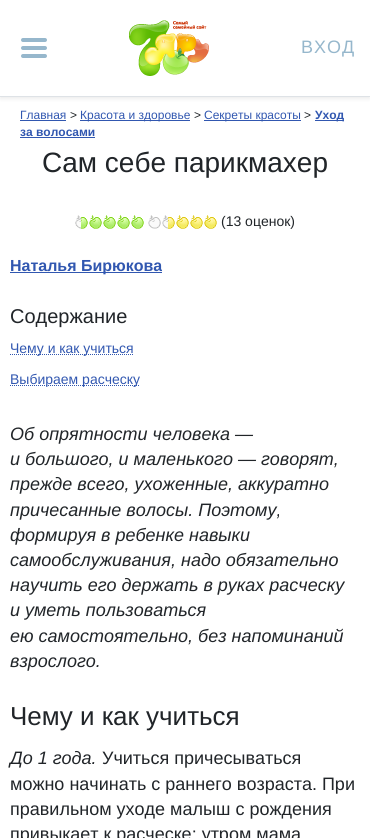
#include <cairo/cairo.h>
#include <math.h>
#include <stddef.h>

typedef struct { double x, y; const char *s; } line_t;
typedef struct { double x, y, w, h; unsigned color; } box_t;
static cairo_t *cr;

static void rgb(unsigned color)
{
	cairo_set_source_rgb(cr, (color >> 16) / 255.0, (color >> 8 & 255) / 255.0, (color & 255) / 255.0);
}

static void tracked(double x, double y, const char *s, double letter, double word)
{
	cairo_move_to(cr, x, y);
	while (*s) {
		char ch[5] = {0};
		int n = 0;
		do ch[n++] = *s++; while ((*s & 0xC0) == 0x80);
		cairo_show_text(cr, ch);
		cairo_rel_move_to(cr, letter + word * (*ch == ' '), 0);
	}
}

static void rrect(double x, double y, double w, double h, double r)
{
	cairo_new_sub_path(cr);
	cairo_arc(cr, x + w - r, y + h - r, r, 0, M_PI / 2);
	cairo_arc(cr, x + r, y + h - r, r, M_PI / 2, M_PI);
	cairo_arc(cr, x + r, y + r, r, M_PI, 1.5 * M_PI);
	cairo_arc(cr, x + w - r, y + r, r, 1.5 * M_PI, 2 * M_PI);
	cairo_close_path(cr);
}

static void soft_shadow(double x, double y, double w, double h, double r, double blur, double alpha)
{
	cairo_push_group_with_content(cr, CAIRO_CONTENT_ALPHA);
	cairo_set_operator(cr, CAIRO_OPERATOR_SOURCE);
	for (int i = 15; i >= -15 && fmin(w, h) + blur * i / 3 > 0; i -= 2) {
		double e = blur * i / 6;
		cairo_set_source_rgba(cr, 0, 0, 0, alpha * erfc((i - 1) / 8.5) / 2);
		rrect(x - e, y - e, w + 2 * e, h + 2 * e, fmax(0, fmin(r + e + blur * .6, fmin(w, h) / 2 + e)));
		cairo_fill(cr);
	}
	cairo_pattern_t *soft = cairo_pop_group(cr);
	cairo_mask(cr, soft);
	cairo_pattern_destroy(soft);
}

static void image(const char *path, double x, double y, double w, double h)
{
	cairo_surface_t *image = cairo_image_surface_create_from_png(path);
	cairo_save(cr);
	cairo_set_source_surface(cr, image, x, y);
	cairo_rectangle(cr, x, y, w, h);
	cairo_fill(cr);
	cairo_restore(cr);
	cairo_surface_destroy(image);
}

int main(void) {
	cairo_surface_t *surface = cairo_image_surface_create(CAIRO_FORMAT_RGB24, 370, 838);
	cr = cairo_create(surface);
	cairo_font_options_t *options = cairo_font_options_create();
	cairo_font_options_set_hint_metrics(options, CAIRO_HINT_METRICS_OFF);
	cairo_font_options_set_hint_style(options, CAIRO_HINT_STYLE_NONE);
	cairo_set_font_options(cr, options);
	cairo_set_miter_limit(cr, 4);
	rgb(0xffffff);
	cairo_paint(cr);
	rgb(0x000000);
	soft_shadow(0, 2, 370, 97, 0, 2, 0.07);
	rgb(0xffffff);
	cairo_rectangle(cr, 0, 0, 370, 96);
	cairo_fill(cr);
	rgb(0xdee2e6);
	cairo_rectangle(cr, 0, 96, 370, 1);
	cairo_fill(cr);
	cairo_new_path(cr);
	cairo_move_to(cr, 23, 40);
	cairo_line_to(cr, 45, 40);
	cairo_move_to(cr, 23, 48);
	cairo_line_to(cr, 45, 48);
	cairo_move_to(cr, 23, 56);
	cairo_line_to(cr, 45, 56);
	rgb(0x96b7cc);
	cairo_set_line_width(cr, 4);
	cairo_set_line_cap(cr, CAIRO_LINE_CAP_ROUND);
	cairo_stroke(cr);
	image("img/1.png", 129, 20, 80, 56);
	{
		static const box_t items[] = {
			{20, 120, 46, 1, 0x3157b0},
			{80, 120, 110, 1, 0x3157b0},
			{204, 120, 97, 1, 0x3157b0},
			{315, 120, 29, 1, 0x3157b0},
			{20, 137, 75, 1, 0x3157b0},
		};
		for (size_t i = 0; i < sizeof items / sizeof *items; i++) {
			rgb(items[i].color);
			cairo_rectangle(cr, items[i].x, items[i].y, items[i].w, items[i].h);
			cairo_fill(cr);
		}
	}
	image("img/2.png", 75, 215, 69, 14);
	image("img/3.png", 148, 215, 69, 14);
	cairo_rectangle(cr, 10, 272, 152, 1);
	cairo_fill(cr);
	cairo_new_path(cr);
	cairo_move_to(cr, 10, 354.5);
	cairo_line_to(cr, 133.5, 354.5);
	cairo_set_line_width(cr, 1);
	cairo_set_line_cap(cr, CAIRO_LINE_CAP_BUTT);
	cairo_set_dash(cr, (double[]){1, 1}, 2, 0);
	cairo_stroke(cr);
	cairo_new_path(cr);
	cairo_move_to(cr, 10, 385.5);
	cairo_line_to(cr, 140, 385.5);
	cairo_stroke(cr);
	cairo_select_font_face(cr, "Liberation Sans", CAIRO_FONT_SLANT_NORMAL, CAIRO_FONT_WEIGHT_NORMAL);
	cairo_set_font_size(cr, 18);
	rgb(0x96b7cc);
	tracked(301, 53, "ВХОД", 1, 0);
	cairo_set_font_size(cr, 12);
	rgb(0x3157b0);
	cairo_move_to(cr, 20, 119);
	cairo_show_text(cr, "Главная");
	rgb(0x212529);
	cairo_move_to(cr, 70, 119);
	cairo_show_text(cr, ">");
	rgb(0x3157b0);
	cairo_move_to(cr, 80, 119);
	cairo_show_text(cr, "Красота и здоровье");
	rgb(0x212529);
	cairo_move_to(cr, 194, 119);
	cairo_show_text(cr, ">");
	rgb(0x3157b0);
	cairo_move_to(cr, 204, 119);
	cairo_show_text(cr, "Секреты красоты");
	rgb(0x212529);
	cairo_move_to(cr, 304, 119);
	cairo_show_text(cr, ">");
	cairo_select_font_face(cr, "Liberation Sans", CAIRO_FONT_SLANT_NORMAL, CAIRO_FONT_WEIGHT_BOLD);
	rgb(0x3157b0);
	cairo_move_to(cr, 315, 119);
	cairo_show_text(cr, "Уход");
	cairo_move_to(cr, 20, 136);
	cairo_show_text(cr, "за волосами");
	cairo_select_font_face(cr, "Liberation Sans", CAIRO_FONT_SLANT_NORMAL, CAIRO_FONT_WEIGHT_NORMAL);
	cairo_set_font_size(cr, 28);
	rgb(0x212529);
	cairo_move_to(cr, 42, 172);
	cairo_show_text(cr, "Сам себе парикмахер");
	cairo_set_font_size(cr, 14);
	cairo_move_to(cr, 221, 226);
	cairo_show_text(cr, "(13 оценок)");
	cairo_select_font_face(cr, "Liberation Sans", CAIRO_FONT_SLANT_NORMAL, CAIRO_FONT_WEIGHT_BOLD);
	cairo_set_font_size(cr, 16);
	rgb(0x3157b0);
	cairo_move_to(cr, 10, 271);
	cairo_show_text(cr, "Наталья Бирюкова");
	cairo_select_font_face(cr, "Liberation Sans", CAIRO_FONT_SLANT_NORMAL, CAIRO_FONT_WEIGHT_NORMAL);
	cairo_set_font_size(cr, 20);
	rgb(0x212529);
	cairo_move_to(cr, 10, 323);
	cairo_show_text(cr, "Содержание");
	cairo_set_font_size(cr, 14);
	rgb(0x3157b0);
	cairo_move_to(cr, 10, 353);
	cairo_show_text(cr, "Чему и как учиться");
	cairo_move_to(cr, 10, 384);
	cairo_show_text(cr, "Выбираем расческу");
	cairo_select_font_face(cr, "Liberation Sans", CAIRO_FONT_SLANT_ITALIC, CAIRO_FONT_WEIGHT_NORMAL);
	cairo_set_font_size(cr, 18);
	rgb(0x212529);
	{
		static const line_t items[] = {
			{10, 440, "Об опрятности человека —"},
			{10, 465, "и большого, и маленького — говорят,"},
			{10, 490, "прежде всего, ухоженные, аккуратно"},
			{10, 516, "причесанные волосы. Поэтому,"},
			{10, 541, "формируя в ребенке навыки"},
			{10, 566, "самообслуживания, надо обязательно"},
			{10, 591, "научить его держать в руках расческу"},
			{10, 616, "и уметь пользоваться"},
			{10, 642, "ею самостоятельно, без напоминаний"},
			{10, 667, "взрослого."},
		};
		for (size_t i = 0; i < sizeof items / sizeof *items; i++) {
			cairo_move_to(cr, items[i].x, items[i].y);
			cairo_show_text(cr, items[i].s);
		}
	}
	cairo_select_font_face(cr, "Liberation Sans", CAIRO_FONT_SLANT_NORMAL, CAIRO_FONT_WEIGHT_NORMAL);
	cairo_set_font_size(cr, 26);
	cairo_move_to(cr, 10, 725);
	cairo_show_text(cr, "Чему и как учиться");
	cairo_select_font_face(cr, "Liberation Sans", CAIRO_FONT_SLANT_ITALIC, CAIRO_FONT_WEIGHT_NORMAL);
	cairo_set_font_size(cr, 18);
	cairo_move_to(cr, 10, 764);
	cairo_show_text(cr, "До 1 года.");
	cairo_select_font_face(cr, "Liberation Sans", CAIRO_FONT_SLANT_NORMAL, CAIRO_FONT_WEIGHT_NORMAL);
	{
		static const line_t items[] = {
			{102, 764, "Учиться причесываться"},
			{10, 790, "можно начинать с раннего возраста. При"},
			{10, 815, "правильном уходе малыш с рождения"},
			{10, 840, "привыкает к расческе: утром мама"},
		};
		for (size_t i = 0; i < sizeof items / sizeof *items; i++) {
			cairo_move_to(cr, items[i].x, items[i].y);
			cairo_show_text(cr, items[i].s);
		}
	}
	cairo_surface_write_to_png(surface, "page.png");
	cairo_font_options_destroy(options);
	cairo_destroy(cr);
	cairo_surface_destroy(surface);
	return 0;
}
